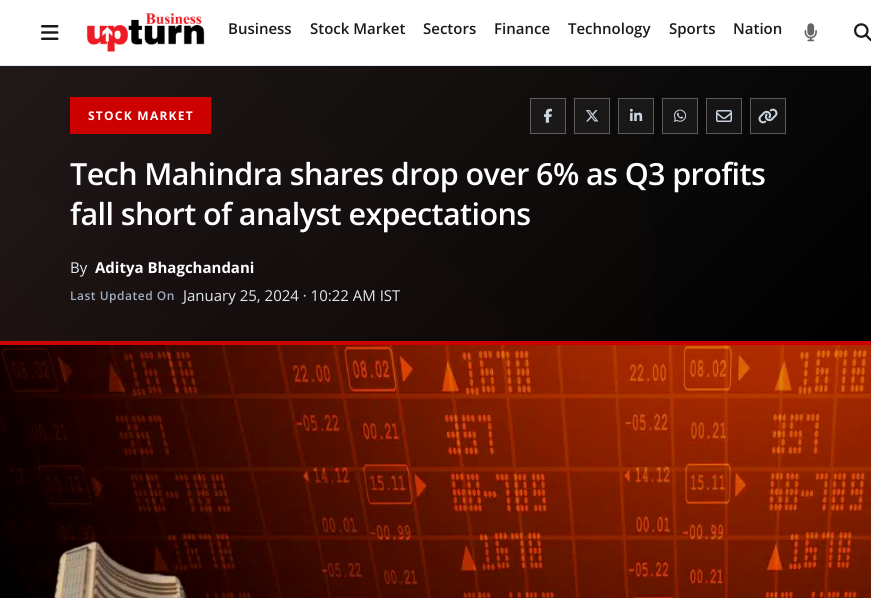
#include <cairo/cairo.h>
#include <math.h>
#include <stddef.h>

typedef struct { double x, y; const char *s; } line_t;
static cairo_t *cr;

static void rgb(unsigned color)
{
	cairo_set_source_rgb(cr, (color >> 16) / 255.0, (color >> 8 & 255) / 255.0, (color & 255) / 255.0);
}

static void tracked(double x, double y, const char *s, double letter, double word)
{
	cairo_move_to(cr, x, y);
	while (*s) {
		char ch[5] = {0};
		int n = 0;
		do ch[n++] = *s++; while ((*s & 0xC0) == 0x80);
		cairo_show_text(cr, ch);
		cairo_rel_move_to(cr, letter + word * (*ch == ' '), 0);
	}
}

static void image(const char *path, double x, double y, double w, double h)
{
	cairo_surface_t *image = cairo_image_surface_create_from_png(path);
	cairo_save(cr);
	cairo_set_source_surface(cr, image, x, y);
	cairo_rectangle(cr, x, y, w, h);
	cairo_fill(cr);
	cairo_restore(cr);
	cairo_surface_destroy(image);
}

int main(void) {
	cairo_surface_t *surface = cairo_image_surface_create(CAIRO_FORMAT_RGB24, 871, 598);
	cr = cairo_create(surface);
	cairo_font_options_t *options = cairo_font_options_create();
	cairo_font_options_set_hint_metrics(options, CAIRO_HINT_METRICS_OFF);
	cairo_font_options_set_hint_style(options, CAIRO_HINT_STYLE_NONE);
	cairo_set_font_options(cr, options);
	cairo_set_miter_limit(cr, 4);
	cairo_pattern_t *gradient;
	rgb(0xffffff);
	cairo_paint(cr);
	rgb(0xe2e8f0);
	cairo_rectangle(cr, 0, 65, 871, 1);
	cairo_fill(cr);
	image("img/1.png", 41, 25, 18, 15);
	image("img/2.png", 86, 13, 119, 39);
	image("img/3.png", 804, 23, 13, 19);
	image("img/4.png", 854, 23, 17, 19);
	gradient = cairo_pattern_create_linear(149, -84, 722, 490);
	cairo_pattern_add_color_stop_rgba(gradient, 0, 0.102, 0.102, 0.102, 1);
	cairo_pattern_add_color_stop_rgba(gradient, 1, 0, 0, 0, 1);
	cairo_set_source(cr, gradient);
	cairo_pattern_destroy(gradient);
	cairo_rectangle(cr, 0, 66, 871, 275);
	cairo_fill(cr);
	rgb(0xcc0000);
	cairo_rectangle(cr, 0, 341, 871, 4);
	cairo_fill(cr);
	cairo_rectangle(cr, 70, 97, 141, 37);
	cairo_fill(cr);
	gradient = cairo_pattern_create_linear(149, 490, 722, -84);
	cairo_pattern_add_color_stop_rgba(gradient, 0, 0.8, 0, 0, 0.05);
	cairo_pattern_add_color_stop_rgba(gradient, 1, 0.8, 0, 0, 0);
	cairo_set_source(cr, gradient);
	cairo_pattern_destroy(gradient);
	cairo_rectangle(cr, 0, 66, 652, 275);
	cairo_fill(cr);
	rgb(0x1b1818);
	cairo_rectangle(cr, 530.5, 98.5, 35, 35);
	cairo_fill_preserve(cr);
	rgb(0x5f5d5d);
	cairo_set_line_width(cr, 1);
	cairo_stroke(cr);
	image("img/5.png", 544, 108, 8, 15);
	rgb(0x1a1717);
	cairo_rectangle(cr, 574.5, 98.5, 35, 35);
	cairo_fill_preserve(cr);
	rgb(0x5f5d5d);
	cairo_stroke(cr);
	image("img/6.png", 585, 110, 14, 12);
	rgb(0x191717);
	cairo_rectangle(cr, 618.5, 98.5, 35, 35);
	cairo_fill_preserve(cr);
	rgb(0x5e5d5d);
	cairo_stroke(cr);
	image("img/7.png", 629, 108, 14, 13);
	rgb(0x181616);
	cairo_rectangle(cr, 662.5, 98.5, 35, 35);
	cairo_fill_preserve(cr);
	rgb(0x5d5c5c);
	cairo_stroke(cr);
	image("img/8.png", 673, 109, 14, 13);
	rgb(0x151515);
	cairo_rectangle(cr, 706.5, 98.5, 35, 35);
	cairo_fill_preserve(cr);
	rgb(0x5b5b5b);
	cairo_stroke(cr);
	image("img/9.png", 716, 110, 16, 12);
	rgb(0x141414);
	cairo_rectangle(cr, 750.5, 98.5, 35, 35);
	cairo_fill_preserve(cr);
	rgb(0x5b5b5b);
	cairo_stroke(cr);
	image("img/10.png", 758, 108, 20, 16);
	image("img/11.png", 0, 345, 871, 253);
	cairo_select_font_face(cr, "Open Sans SemiBold", CAIRO_FONT_SLANT_NORMAL, CAIRO_FONT_WEIGHT_NORMAL);
	cairo_set_font_size(cr, 15);
	rgb(0x1a1a1a);
	{
		static const line_t items[] = {
			{228, 34, "Business"},
			{310, 34, "Stock Market"},
			{423, 34, "Sectors"},
			{494, 34, "Finance"},
			{568, 34, "Technology"},
			{669, 34, "Sports"},
			{733, 34, "Nation"},
		};
		for (size_t i = 0; i < sizeof items / sizeof *items; i++) {
			cairo_move_to(cr, items[i].x, items[i].y);
			cairo_show_text(cr, items[i].s);
		}
	}
	cairo_select_font_face(cr, "Open Sans", CAIRO_FONT_SLANT_NORMAL, CAIRO_FONT_WEIGHT_BOLD);
	cairo_set_font_size(cr, 12);
	rgb(0xffffff);
	tracked(88, 120, "STOCK MARKET", 1.25, 0);
	cairo_select_font_face(cr, "Open Sans SemiBold", CAIRO_FONT_SLANT_NORMAL, CAIRO_FONT_WEIGHT_NORMAL);
	cairo_set_font_size(cr, 30.5);
	tracked(70, 185, "Tech Mahindra shares drop over 6% as Q3 profits", -0.6, 0);
	tracked(70, 225, "fall short of analyst expectations", -0.6, 0);
	cairo_select_font_face(cr, "Open Sans", CAIRO_FONT_SLANT_NORMAL, CAIRO_FONT_WEIGHT_NORMAL);
	cairo_set_font_size(cr, 15);
	rgb(0xe2e8f0);
	cairo_move_to(cr, 70, 273);
	cairo_show_text(cr, "By");
	cairo_select_font_face(cr, "Open Sans", CAIRO_FONT_SLANT_NORMAL, CAIRO_FONT_WEIGHT_BOLD);
	rgb(0xffffff);
	cairo_move_to(cr, 95, 273);
	cairo_show_text(cr, "Aditya Bhagchandani");
	cairo_select_font_face(cr, "Open Sans SemiBold", CAIRO_FONT_SLANT_NORMAL, CAIRO_FONT_WEIGHT_NORMAL);
	cairo_set_font_size(cr, 12);
	rgb(0xa0aec0);
	tracked(70, 300, "Last Updated On", 0.5, 0);
	cairo_select_font_face(cr, "Open Sans", CAIRO_FONT_SLANT_NORMAL, CAIRO_FONT_WEIGHT_NORMAL);
	cairo_set_font_size(cr, 15);
	rgb(0xe2e8f0);
	cairo_move_to(cr, 183, 301);
	cairo_show_text(cr, "January 25, 2024 · 10:22 AM IST");
	cairo_surface_write_to_png(surface, "page.png");
	cairo_font_options_destroy(options);
	cairo_destroy(cr);
	cairo_surface_destroy(surface);
	return 0;
}
